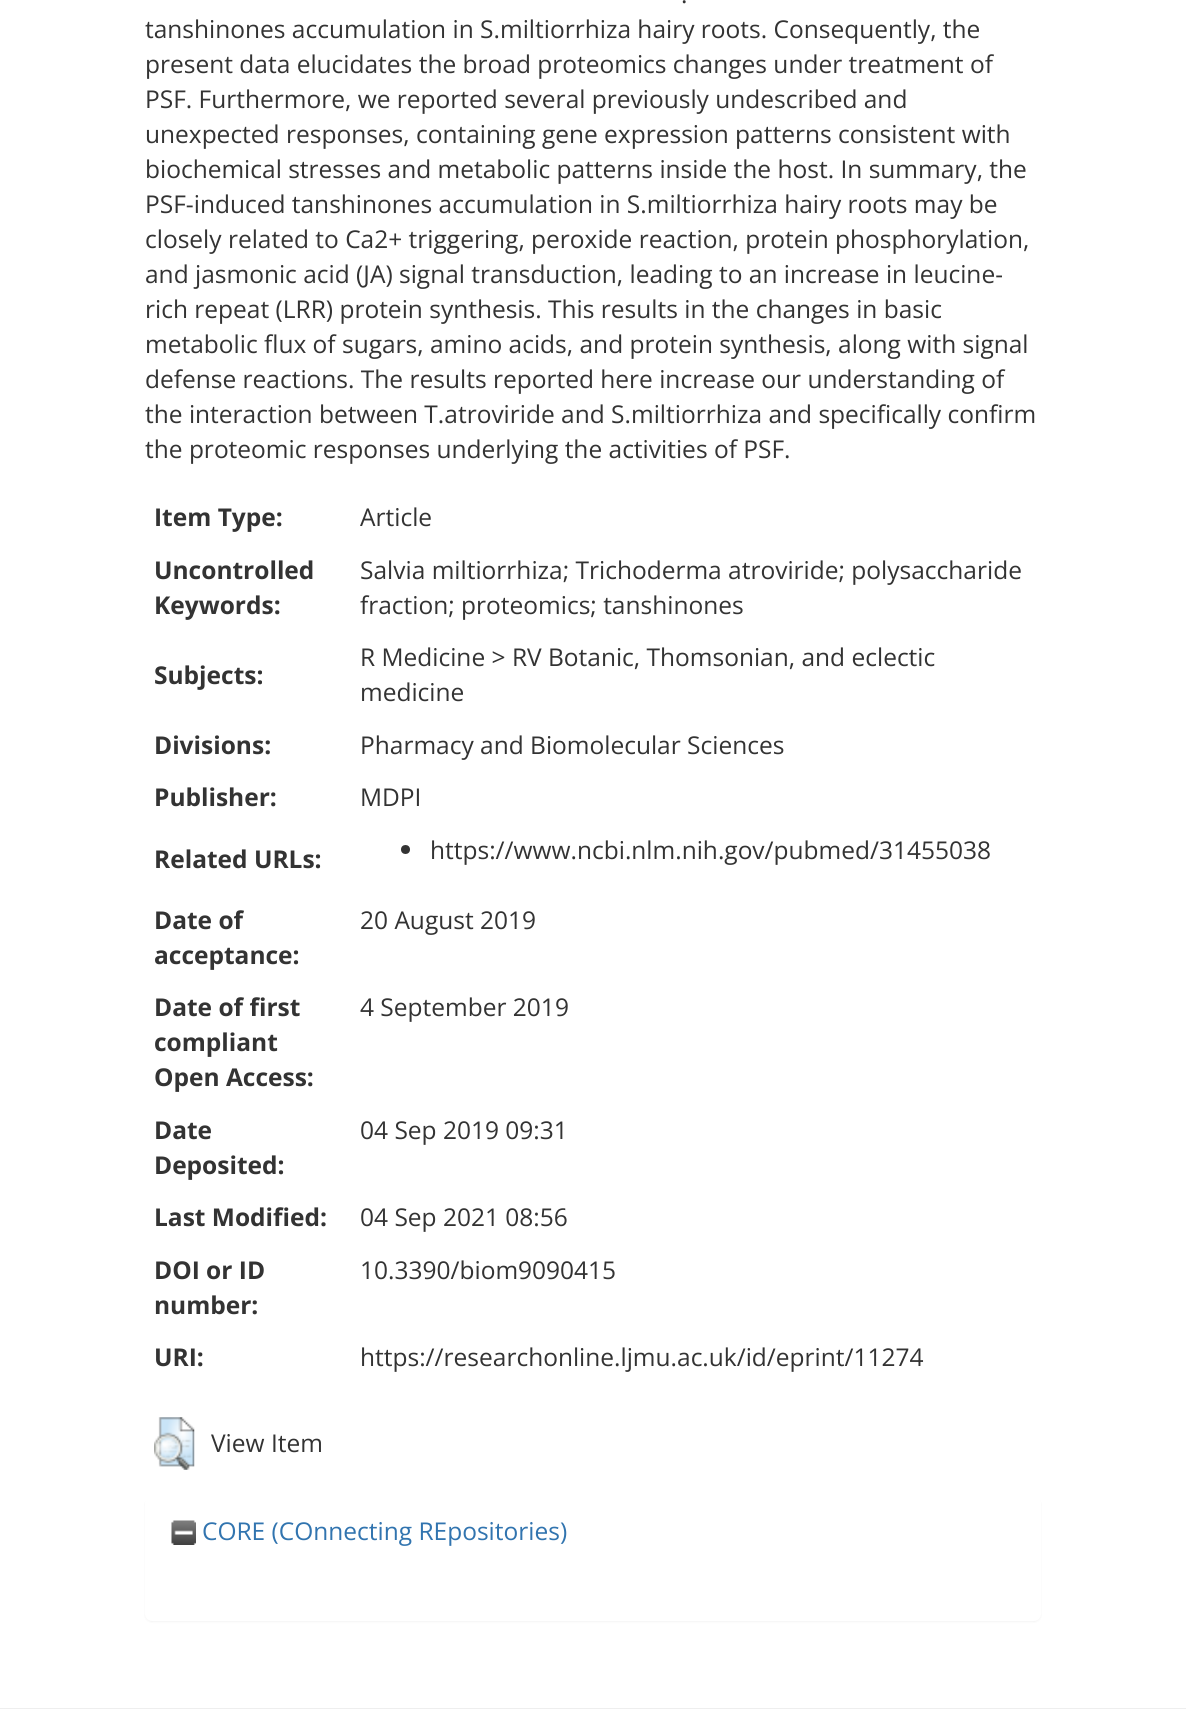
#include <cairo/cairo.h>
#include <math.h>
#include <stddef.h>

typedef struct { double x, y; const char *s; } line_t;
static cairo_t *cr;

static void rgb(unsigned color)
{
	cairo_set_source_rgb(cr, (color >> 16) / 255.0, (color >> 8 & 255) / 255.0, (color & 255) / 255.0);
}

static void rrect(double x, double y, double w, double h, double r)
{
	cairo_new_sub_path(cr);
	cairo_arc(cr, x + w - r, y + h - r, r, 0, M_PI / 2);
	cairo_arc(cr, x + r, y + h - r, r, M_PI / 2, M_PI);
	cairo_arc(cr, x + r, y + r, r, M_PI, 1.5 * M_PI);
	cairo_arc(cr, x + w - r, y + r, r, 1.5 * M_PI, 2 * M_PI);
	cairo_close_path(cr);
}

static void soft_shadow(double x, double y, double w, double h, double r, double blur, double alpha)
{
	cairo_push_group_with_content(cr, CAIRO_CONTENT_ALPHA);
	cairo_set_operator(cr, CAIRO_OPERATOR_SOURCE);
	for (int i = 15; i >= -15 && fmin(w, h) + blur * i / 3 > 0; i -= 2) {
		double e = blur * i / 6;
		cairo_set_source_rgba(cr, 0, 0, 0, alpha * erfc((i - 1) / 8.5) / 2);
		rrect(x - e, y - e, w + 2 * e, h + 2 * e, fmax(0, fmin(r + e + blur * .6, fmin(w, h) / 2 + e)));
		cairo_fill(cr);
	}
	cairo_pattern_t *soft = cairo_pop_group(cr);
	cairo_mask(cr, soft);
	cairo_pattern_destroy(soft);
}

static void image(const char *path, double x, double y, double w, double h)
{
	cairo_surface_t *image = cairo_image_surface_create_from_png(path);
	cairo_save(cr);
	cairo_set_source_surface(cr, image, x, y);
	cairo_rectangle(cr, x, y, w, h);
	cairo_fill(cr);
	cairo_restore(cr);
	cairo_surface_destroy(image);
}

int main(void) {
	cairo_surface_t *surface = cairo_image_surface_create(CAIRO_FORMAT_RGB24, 1186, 1709);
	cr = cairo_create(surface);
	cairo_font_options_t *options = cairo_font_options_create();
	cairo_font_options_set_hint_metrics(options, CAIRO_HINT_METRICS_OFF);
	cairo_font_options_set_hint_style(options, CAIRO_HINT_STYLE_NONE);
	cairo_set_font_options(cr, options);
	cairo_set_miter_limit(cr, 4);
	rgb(0xffffff);
	cairo_paint(cr);
	rgb(0x333333);
	cairo_arc(cr, 405.5, 849.5, 4.5, 0, 2 * M_PI);
	cairo_fill(cr);
	image("img/1.png", 154, 1417, 41, 53);
	rgb(0x000000);
	soft_shadow(145, 1498, 896, 124, 7, 1, 0.05);
	rgb(0xffffff);
	rrect(145, 1496, 896, 125, 7);
	cairo_fill(cr);
	image("img/2.png", 171, 1520, 25, 25);
	rgb(0xeeeeee);
	cairo_rectangle(cr, 0, 1708, 1186, 1);
	cairo_fill(cr);
	cairo_select_font_face(cr, "Open Sans", CAIRO_FONT_SLANT_NORMAL, CAIRO_FONT_WEIGHT_NORMAL);
	cairo_set_font_size(cr, 24.5);
	rgb(0x333333);
	{
		static const line_t items[] = {
			{681, 3, "."},
			{145, 38, "tanshinones accumulation in S.miltiorrhiza hairy roots. Consequently, the"},
			{145, 73, "present data elucidates the broad proteomics changes under treatment of"},
			{145, 108, "PSF. Furthermore, we reported several previously undescribed and"},
			{145, 143, "unexpected responses, containing gene expression patterns consistent with"},
			{145, 178, "biochemical stresses and metabolic patterns inside the host. In summary, the"},
			{145, 213, "PSF-induced tanshinones accumulation in S.miltiorrhiza hairy roots may be"},
			{145, 248, "closely related to Ca2+ triggering, peroxide reaction, protein phosphorylation,"},
			{145, 283, "and jasmonic acid (JA) signal transduction, leading to an increase in leucine-"},
			{145, 318, "rich repeat (LRR) protein synthesis. This results in the changes in basic"},
			{145, 353, "metabolic flux of sugars, amino acids, and protein synthesis, along with signal"},
			{145, 388, "defense reactions. The results reported here increase our understanding of"},
			{145, 423, "the interaction between T.atroviride and S.miltiorrhiza and specifically confirm"},
			{145, 458, "the proteomic responses underlying the activities of PSF."},
		};
		for (size_t i = 0; i < sizeof items / sizeof *items; i++) {
			cairo_move_to(cr, items[i].x, items[i].y);
			cairo_show_text(cr, items[i].s);
		}
	}
	cairo_select_font_face(cr, "Open Sans", CAIRO_FONT_SLANT_NORMAL, CAIRO_FONT_WEIGHT_BOLD);
	cairo_move_to(cr, 154, 526);
	cairo_show_text(cr, "Item Type:");
	cairo_select_font_face(cr, "Open Sans", CAIRO_FONT_SLANT_NORMAL, CAIRO_FONT_WEIGHT_NORMAL);
	cairo_move_to(cr, 360, 526);
	cairo_show_text(cr, "Article");
	cairo_select_font_face(cr, "Open Sans", CAIRO_FONT_SLANT_NORMAL, CAIRO_FONT_WEIGHT_BOLD);
	cairo_move_to(cr, 154, 579);
	cairo_show_text(cr, "Uncontrolled");
	cairo_move_to(cr, 154, 614);
	cairo_show_text(cr, "Keywords:");
	cairo_select_font_face(cr, "Open Sans", CAIRO_FONT_SLANT_NORMAL, CAIRO_FONT_WEIGHT_NORMAL);
	cairo_move_to(cr, 360, 579);
	cairo_show_text(cr, "Salvia miltiorrhiza; Trichoderma atroviride; polysaccharide");
	cairo_move_to(cr, 360, 614);
	cairo_show_text(cr, "fraction; proteomics; tanshinones");
	cairo_select_font_face(cr, "Open Sans", CAIRO_FONT_SLANT_NORMAL, CAIRO_FONT_WEIGHT_BOLD);
	cairo_move_to(cr, 154, 684);
	cairo_show_text(cr, "Subjects:");
	cairo_select_font_face(cr, "Open Sans", CAIRO_FONT_SLANT_NORMAL, CAIRO_FONT_WEIGHT_NORMAL);
	cairo_move_to(cr, 360, 666);
	cairo_show_text(cr, "R Medicine > RV Botanic, Thomsonian, and eclectic");
	cairo_move_to(cr, 360, 701);
	cairo_show_text(cr, "medicine");
	cairo_select_font_face(cr, "Open Sans", CAIRO_FONT_SLANT_NORMAL, CAIRO_FONT_WEIGHT_BOLD);
	cairo_move_to(cr, 154, 754);
	cairo_show_text(cr, "Divisions:");
	cairo_select_font_face(cr, "Open Sans", CAIRO_FONT_SLANT_NORMAL, CAIRO_FONT_WEIGHT_NORMAL);
	cairo_move_to(cr, 360, 754);
	cairo_show_text(cr, "Pharmacy and Biomolecular Sciences");
	cairo_select_font_face(cr, "Open Sans", CAIRO_FONT_SLANT_NORMAL, CAIRO_FONT_WEIGHT_BOLD);
	cairo_move_to(cr, 154, 806);
	cairo_show_text(cr, "Publisher:");
	cairo_select_font_face(cr, "Open Sans", CAIRO_FONT_SLANT_NORMAL, CAIRO_FONT_WEIGHT_NORMAL);
	cairo_move_to(cr, 360, 806);
	cairo_show_text(cr, "MDPI");
	cairo_select_font_face(cr, "Open Sans", CAIRO_FONT_SLANT_NORMAL, CAIRO_FONT_WEIGHT_BOLD);
	cairo_move_to(cr, 154, 868);
	cairo_show_text(cr, "Related URLs:");
	cairo_select_font_face(cr, "Open Sans", CAIRO_FONT_SLANT_NORMAL, CAIRO_FONT_WEIGHT_NORMAL);
	cairo_move_to(cr, 430, 859);
	cairo_show_text(cr, "https://www.ncbi.nlm.nih.gov/pubmed/31455038");
	cairo_select_font_face(cr, "Open Sans", CAIRO_FONT_SLANT_NORMAL, CAIRO_FONT_WEIGHT_BOLD);
	cairo_move_to(cr, 154, 929);
	cairo_show_text(cr, "Date of");
	cairo_move_to(cr, 154, 964);
	cairo_show_text(cr, "acceptance:");
	cairo_select_font_face(cr, "Open Sans", CAIRO_FONT_SLANT_NORMAL, CAIRO_FONT_WEIGHT_NORMAL);
	cairo_move_to(cr, 360, 929);
	cairo_show_text(cr, "20 August 2019");
	cairo_select_font_face(cr, "Open Sans", CAIRO_FONT_SLANT_NORMAL, CAIRO_FONT_WEIGHT_BOLD);
	{
		static const line_t items[] = {
			{154, 1016, "Date of first"},
			{154, 1051, "compliant"},
			{154, 1086, "Open Access:"},
		};
		for (size_t i = 0; i < sizeof items / sizeof *items; i++) {
			cairo_move_to(cr, items[i].x, items[i].y);
			cairo_show_text(cr, items[i].s);
		}
	}
	cairo_select_font_face(cr, "Open Sans", CAIRO_FONT_SLANT_NORMAL, CAIRO_FONT_WEIGHT_NORMAL);
	cairo_move_to(cr, 360, 1016);
	cairo_show_text(cr, "4 September 2019");
	cairo_select_font_face(cr, "Open Sans", CAIRO_FONT_SLANT_NORMAL, CAIRO_FONT_WEIGHT_BOLD);
	cairo_move_to(cr, 154, 1139);
	cairo_show_text(cr, "Date");
	cairo_move_to(cr, 154, 1174);
	cairo_show_text(cr, "Deposited:");
	cairo_select_font_face(cr, "Open Sans", CAIRO_FONT_SLANT_NORMAL, CAIRO_FONT_WEIGHT_NORMAL);
	cairo_move_to(cr, 360, 1139);
	cairo_show_text(cr, "04 Sep 2019 09:31");
	cairo_select_font_face(cr, "Open Sans", CAIRO_FONT_SLANT_NORMAL, CAIRO_FONT_WEIGHT_BOLD);
	cairo_move_to(cr, 154, 1226);
	cairo_show_text(cr, "Last Modified:");
	cairo_select_font_face(cr, "Open Sans", CAIRO_FONT_SLANT_NORMAL, CAIRO_FONT_WEIGHT_NORMAL);
	cairo_move_to(cr, 360, 1226);
	cairo_show_text(cr, "04 Sep 2021 08:56");
	cairo_select_font_face(cr, "Open Sans", CAIRO_FONT_SLANT_NORMAL, CAIRO_FONT_WEIGHT_BOLD);
	cairo_move_to(cr, 154, 1279);
	cairo_show_text(cr, "DOI or ID");
	cairo_move_to(cr, 154, 1314);
	cairo_show_text(cr, "number:");
	cairo_select_font_face(cr, "Open Sans", CAIRO_FONT_SLANT_NORMAL, CAIRO_FONT_WEIGHT_NORMAL);
	cairo_move_to(cr, 360, 1279);
	cairo_show_text(cr, "10.3390/biom9090415");
	cairo_select_font_face(cr, "Open Sans", CAIRO_FONT_SLANT_NORMAL, CAIRO_FONT_WEIGHT_BOLD);
	cairo_move_to(cr, 154, 1366);
	cairo_show_text(cr, "URI:");
	cairo_select_font_face(cr, "Open Sans", CAIRO_FONT_SLANT_NORMAL, CAIRO_FONT_WEIGHT_NORMAL);
	cairo_move_to(cr, 360, 1366);
	cairo_show_text(cr, "https://researchonline.ljmu.ac.uk/id/eprint/11274");
	cairo_move_to(cr, 211, 1452);
	cairo_show_text(cr, "View Item");
	rgb(0x3174af);
	cairo_move_to(cr, 202, 1540);
	cairo_show_text(cr, "CORE (COnnecting REpositories)");
	cairo_surface_write_to_png(surface, "page.png");
	cairo_font_options_destroy(options);
	cairo_destroy(cr);
	cairo_surface_destroy(surface);
	return 0;
}
